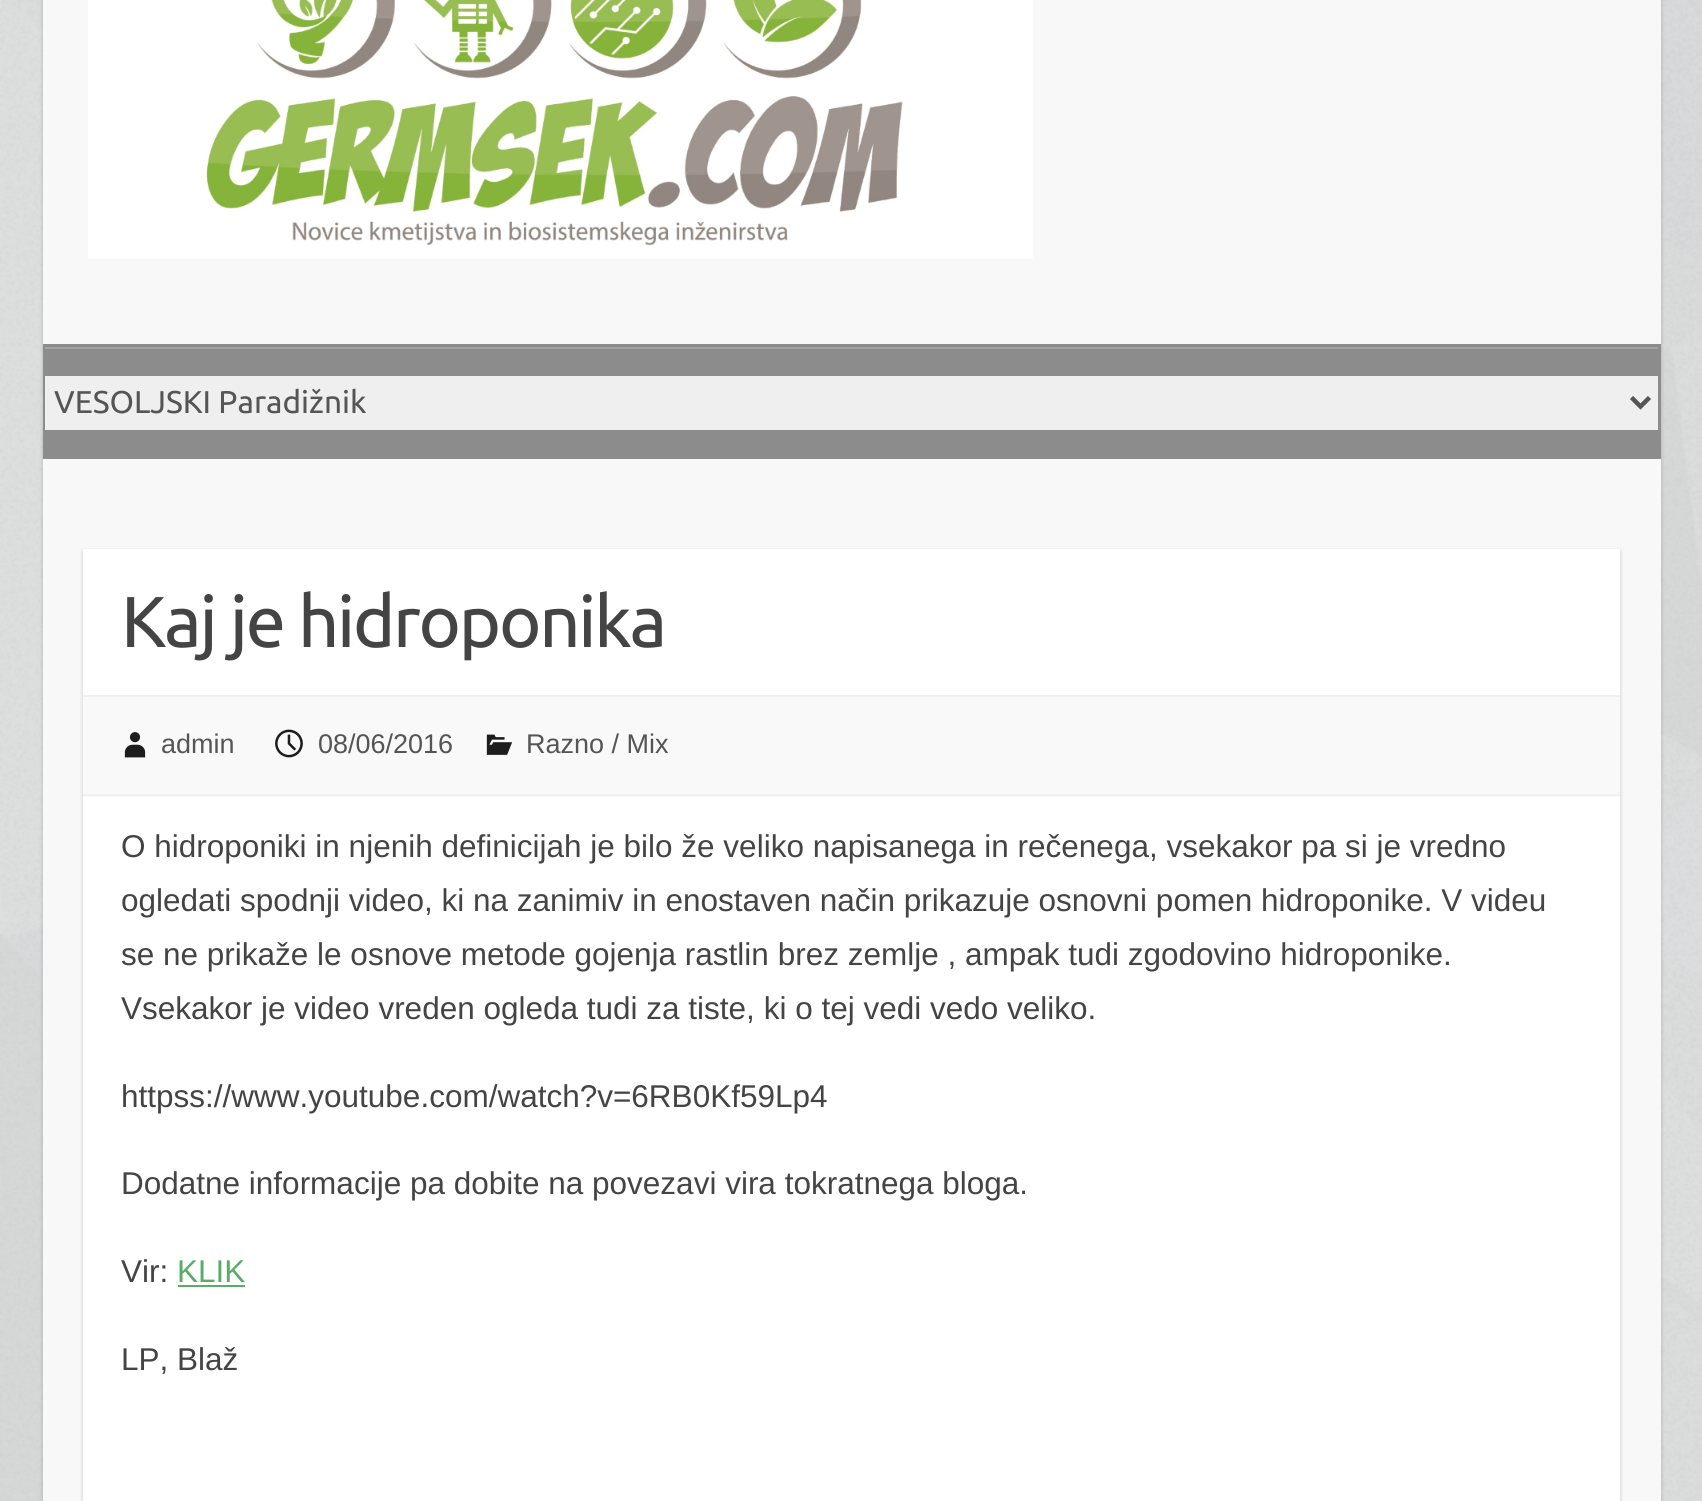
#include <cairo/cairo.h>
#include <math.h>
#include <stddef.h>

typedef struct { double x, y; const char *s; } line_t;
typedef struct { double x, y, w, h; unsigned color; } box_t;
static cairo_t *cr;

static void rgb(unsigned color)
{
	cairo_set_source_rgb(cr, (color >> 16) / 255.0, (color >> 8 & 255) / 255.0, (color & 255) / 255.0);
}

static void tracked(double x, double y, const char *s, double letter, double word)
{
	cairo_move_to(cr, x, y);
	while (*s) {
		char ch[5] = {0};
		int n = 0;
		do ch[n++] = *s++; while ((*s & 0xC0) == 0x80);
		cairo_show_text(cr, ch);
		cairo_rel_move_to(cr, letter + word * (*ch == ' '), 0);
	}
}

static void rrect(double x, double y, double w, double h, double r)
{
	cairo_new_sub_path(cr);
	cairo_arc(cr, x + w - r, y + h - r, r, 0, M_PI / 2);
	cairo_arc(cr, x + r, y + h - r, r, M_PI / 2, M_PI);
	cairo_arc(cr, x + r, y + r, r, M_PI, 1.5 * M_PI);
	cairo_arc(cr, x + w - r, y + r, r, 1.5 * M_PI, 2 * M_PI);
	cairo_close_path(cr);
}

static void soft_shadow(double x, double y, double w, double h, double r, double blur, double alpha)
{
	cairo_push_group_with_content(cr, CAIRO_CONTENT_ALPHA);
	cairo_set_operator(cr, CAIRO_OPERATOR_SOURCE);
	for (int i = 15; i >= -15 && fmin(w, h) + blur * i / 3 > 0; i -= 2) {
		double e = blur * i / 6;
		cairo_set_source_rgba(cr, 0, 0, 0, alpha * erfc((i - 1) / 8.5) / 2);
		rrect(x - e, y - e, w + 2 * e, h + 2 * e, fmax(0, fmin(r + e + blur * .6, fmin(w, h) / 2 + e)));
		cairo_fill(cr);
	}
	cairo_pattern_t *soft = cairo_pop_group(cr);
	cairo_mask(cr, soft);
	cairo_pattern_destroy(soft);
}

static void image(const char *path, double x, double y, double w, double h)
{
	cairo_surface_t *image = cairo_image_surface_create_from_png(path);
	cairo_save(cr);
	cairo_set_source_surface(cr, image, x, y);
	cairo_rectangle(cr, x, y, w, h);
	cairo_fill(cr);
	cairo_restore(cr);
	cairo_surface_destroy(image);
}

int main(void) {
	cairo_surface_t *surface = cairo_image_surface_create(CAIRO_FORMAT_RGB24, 1702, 1501);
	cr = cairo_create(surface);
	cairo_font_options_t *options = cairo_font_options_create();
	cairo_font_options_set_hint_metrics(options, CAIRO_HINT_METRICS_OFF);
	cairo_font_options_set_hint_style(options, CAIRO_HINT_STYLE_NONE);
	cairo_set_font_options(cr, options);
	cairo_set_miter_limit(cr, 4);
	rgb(0xffffff);
	cairo_paint(cr);
	image("img/1.png", 0, 0, 1702, 1501);
	rgb(0x000000);
	soft_shadow(43, -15, 1618, 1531, 9, 2, 0.2);
	rgb(0xf8f8f8);
	cairo_rectangle(cr, 43, 0, 1618, 1501);
	cairo_fill(cr);
	image("img/2.png", 88, 0, 945, 259);
	{
		static const box_t items[] = {
			{43, 344, 1618, 115, 0x8c8c8c},
			{45, 347, 1613, 2, 0xa3a3a3},
			{45, 376, 1613, 54, 0xefefef},
		};
		for (size_t i = 0; i < sizeof items / sizeof *items; i++) {
			rgb(items[i].color);
			cairo_rectangle(cr, items[i].x, items[i].y, items[i].w, items[i].h);
			cairo_fill(cr);
		}
	}
	cairo_new_path(cr);
	cairo_move_to(cr, 1631.5, 397.5);
	cairo_line_to(cr, 1640.5, 406.5);
	cairo_line_to(cr, 1649.5, 397.5);
	rgb(0x555555);
	cairo_set_line_width(cr, 4.5);
	cairo_stroke(cr);
	rgb(0x000000);
	soft_shadow(83, 551, 1537, 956, 0, 2, 0.2);
	{
		static const box_t items[] = {
			{83, 549, 1537, 952, 0xffffff},
			{83, 697, 1537, 100, 0xf9f9f9},
			{83, 695, 1537, 2, 0xf0f0f0},
			{83, 794, 1537, 2, 0xf0f0f0},
		};
		for (size_t i = 0; i < sizeof items / sizeof *items; i++) {
			rgb(items[i].color);
			cairo_rectangle(cr, items[i].x, items[i].y, items[i].w, items[i].h);
			cairo_fill(cr);
		}
	}
	image("img/3.png", 124, 732, 22, 26);
	image("img/4.png", 275, 729, 28, 29);
	image("img/5.png", 486, 734, 27, 21);
	rgb(0x57ad68);
	cairo_rectangle(cr, 178, 1285, 67, 2);
	cairo_fill(cr);
	cairo_select_font_face(cr, "Ubuntu", CAIRO_FONT_SLANT_NORMAL, CAIRO_FONT_WEIGHT_NORMAL);
	cairo_set_font_size(cr, 31.5);
	rgb(0x555555);
	cairo_move_to(cr, 54, 413);
	cairo_show_text(cr, "VESOLJSKI Paradižnik");
	cairo_set_font_size(cr, 72);
	rgb(0x444444);
	tracked(121, 647, "Kaj je hidroponika", -2.25, 0);
	cairo_select_font_face(cr, "Liberation Sans", CAIRO_FONT_SLANT_NORMAL, CAIRO_FONT_WEIGHT_NORMAL);
	cairo_set_font_size(cr, 27);
	rgb(0x555555);
	{
		static const line_t items[] = {
			{161, 753, "admin"},
			{318, 753, "08/06/2016"},
			{526, 753, "Razno / Mix"},
		};
		for (size_t i = 0; i < sizeof items / sizeof *items; i++) {
			cairo_move_to(cr, items[i].x, items[i].y);
			cairo_show_text(cr, items[i].s);
		}
	}
	cairo_set_font_size(cr, 31.5);
	rgb(0x444444);
	{
		static const line_t items[] = {
			{121, 857, "O hidroponiki in njenih definicijah je bilo že veliko napisanega in rečenega, vsekakor pa si je vredno"},
			{121, 911, "ogledati spodnji video, ki na zanimiv in enostaven način prikazuje osnovni pomen hidroponike. V videu"},
			{121, 965, "se ne prikaže le osnove metode gojenja rastlin brez zemlje , ampak tudi zgodovino hidroponike."},
			{121, 1019, "Vsekakor je video vreden ogleda tudi za tiste, ki o tej vedi vedo veliko."},
			{121, 1107, "httpss://www.youtube.com/watch?v=6RB0Kf59Lp4"},
			{121, 1194, "Dodatne informacije pa dobite na povezavi vira tokratnega bloga."},
			{121, 1282, "Vir:"},
		};
		for (size_t i = 0; i < sizeof items / sizeof *items; i++) {
			cairo_move_to(cr, items[i].x, items[i].y);
			cairo_show_text(cr, items[i].s);
		}
	}
	rgb(0x57ad68);
	cairo_move_to(cr, 177, 1282);
	cairo_show_text(cr, "KLIK");
	rgb(0x444444);
	cairo_move_to(cr, 121, 1370);
	cairo_show_text(cr, "LP, Blaž");
	cairo_surface_write_to_png(surface, "page.png");
	cairo_font_options_destroy(options);
	cairo_destroy(cr);
	cairo_surface_destroy(surface);
	return 0;
}
